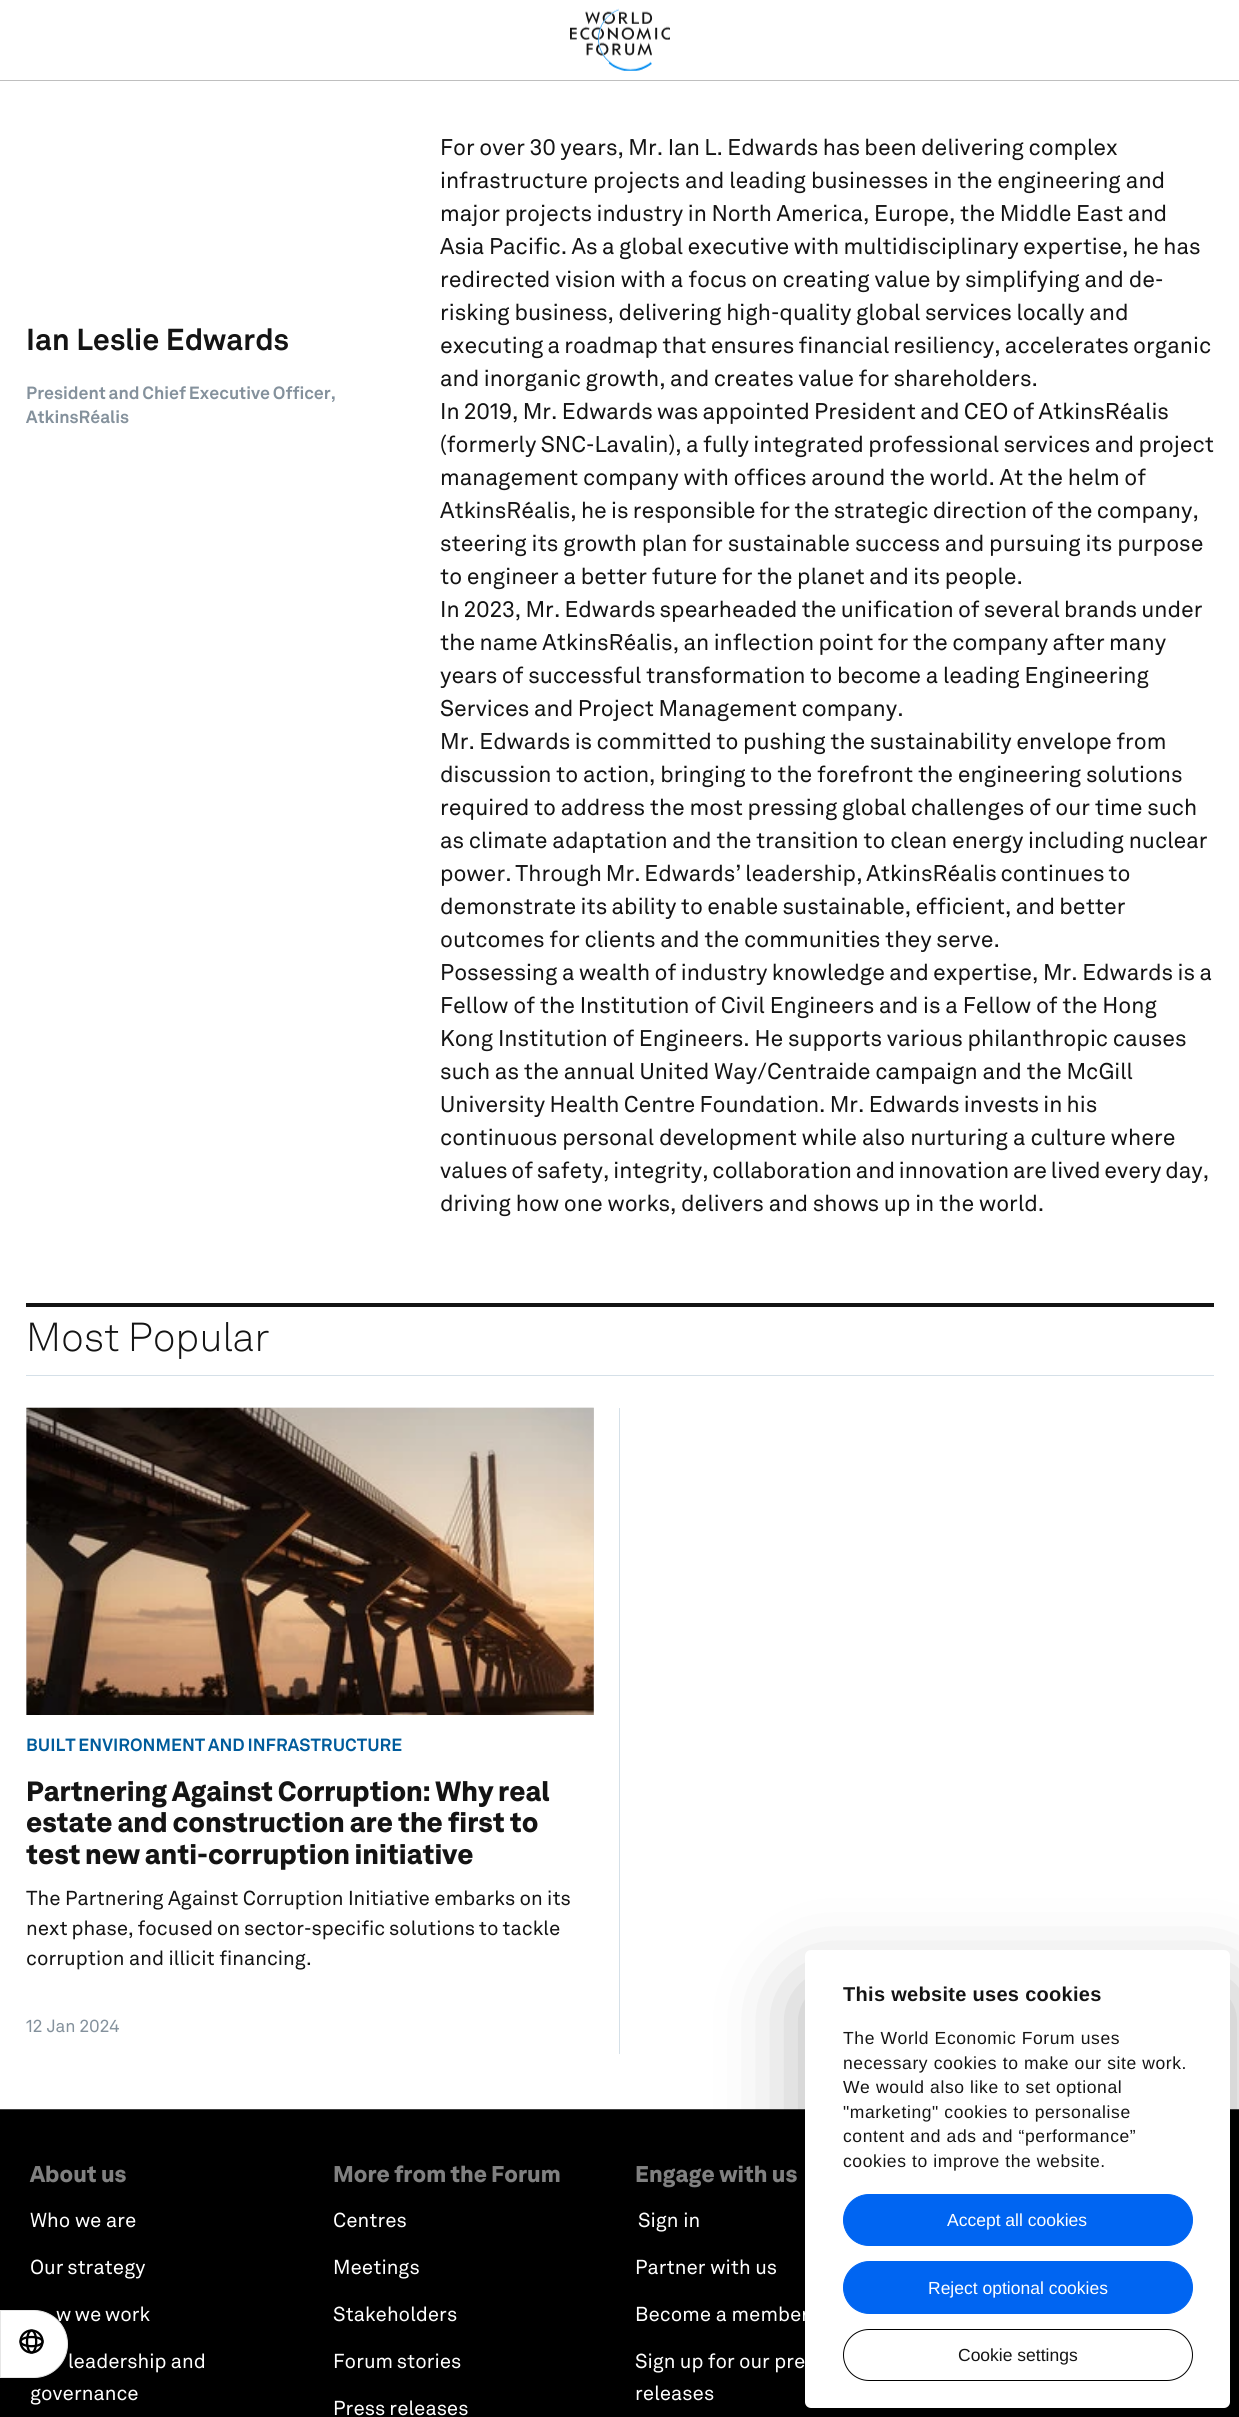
#include <cairo/cairo.h>
#include <math.h>
#include <stddef.h>

typedef struct { double x, y; const char *s; } line_t;
typedef struct { double x, y, w, h; unsigned color; } box_t;
static cairo_t *cr;

static void rgb(unsigned color)
{
	cairo_set_source_rgb(cr, (color >> 16) / 255.0, (color >> 8 & 255) / 255.0, (color & 255) / 255.0);
}

static void tracked(double x, double y, const char *s, double letter, double word)
{
	cairo_move_to(cr, x, y);
	while (*s) {
		char ch[5] = {0};
		int n = 0;
		do ch[n++] = *s++; while ((*s & 0xC0) == 0x80);
		cairo_show_text(cr, ch);
		cairo_rel_move_to(cr, letter + word * (*ch == ' '), 0);
	}
}

static void rrect(double x, double y, double w, double h, double r)
{
	cairo_new_sub_path(cr);
	cairo_arc(cr, x + w - r, y + h - r, r, 0, M_PI / 2);
	cairo_arc(cr, x + r, y + h - r, r, M_PI / 2, M_PI);
	cairo_arc(cr, x + r, y + r, r, M_PI, 1.5 * M_PI);
	cairo_arc(cr, x + w - r, y + r, r, 1.5 * M_PI, 2 * M_PI);
	cairo_close_path(cr);
}

static void soft_shadow(double x, double y, double w, double h, double r, double blur, double alpha)
{
	cairo_push_group_with_content(cr, CAIRO_CONTENT_ALPHA);
	cairo_set_operator(cr, CAIRO_OPERATOR_SOURCE);
	for (int i = 15; i >= -15 && fmin(w, h) + blur * i / 3 > 0; i -= 2) {
		double e = blur * i / 6;
		cairo_set_source_rgba(cr, 0, 0, 0, alpha * erfc((i - 1) / 8.5) / 2);
		rrect(x - e, y - e, w + 2 * e, h + 2 * e, fmax(0, fmin(r + e + blur * .6, fmin(w, h) / 2 + e)));
		cairo_fill(cr);
	}
	cairo_pattern_t *soft = cairo_pop_group(cr);
	cairo_mask(cr, soft);
	cairo_pattern_destroy(soft);
}

static void image(const char *path, double x, double y, double w, double h)
{
	cairo_surface_t *image = cairo_image_surface_create_from_png(path);
	cairo_save(cr);
	cairo_set_source_surface(cr, image, x, y);
	cairo_rectangle(cr, x, y, w, h);
	cairo_fill(cr);
	cairo_restore(cr);
	cairo_surface_destroy(image);
}

int main(void) {
	cairo_surface_t *surface = cairo_image_surface_create(CAIRO_FORMAT_RGB24, 1239, 2417);
	cr = cairo_create(surface);
	cairo_font_options_t *options = cairo_font_options_create();
	cairo_font_options_set_hint_metrics(options, CAIRO_HINT_METRICS_OFF);
	cairo_font_options_set_hint_style(options, CAIRO_HINT_STYLE_NONE);
	cairo_set_font_options(cr, options);
	cairo_set_miter_limit(cr, 4);
	rgb(0xffffff);
	cairo_paint(cr);
	rgb(0xbfbfbf);
	cairo_rectangle(cr, 0, 80, 1239, 1);
	cairo_fill(cr);
	image("img/1.png", 570, 8, 100, 63);
	{
		static const box_t items[] = {
			{26, 1303, 1188, 4, 0x141414},
			{26, 1375, 1188, 1, 0xd5e0e8},
			{26, 1408, 568, 307, 0xd8d8d8},
		};
		for (size_t i = 0; i < sizeof items / sizeof *items; i++) {
			rgb(items[i].color);
			cairo_rectangle(cr, items[i].x, items[i].y, items[i].w, items[i].h);
			cairo_fill(cr);
		}
	}
	image("img/2.png", 26, 1407, 568, 207);
	image("img/3.png", 26, 1407, 568, 308);
	{
		static const box_t items[] = {
			{619, 1408, 1, 646, 0xd5e0e8},
			{0, 2110, 1239, 307, 0x000000},
			{0, 2109, 1239, 1, 0x404040},
		};
		for (size_t i = 0; i < sizeof items / sizeof *items; i++) {
			rgb(items[i].color);
			cairo_rectangle(cr, items[i].x, items[i].y, items[i].w, items[i].h);
			cairo_fill(cr);
		}
	}
	rgb(0xffffff);
	cairo_new_path(cr);
	cairo_move_to(cr, 0.5, 2310.5);
	cairo_line_to(cr, 34, 2310.5);
	cairo_curve_to(cr, 52.5, 2310.5, 67.5, 2325.5, 67.5, 2344);
	cairo_curve_to(cr, 67.5, 2362.5, 52.5, 2377.5, 34, 2377.5);
	cairo_line_to(cr, 0.5, 2377.5);
	cairo_close_path(cr);
	cairo_fill_preserve(cr);
	rgb(0xe6e6e6);
	cairo_set_line_width(cr, 1);
	cairo_stroke(cr);
	image("img/4.png", 19, 2329, 25, 25);
	rgb(0x000000);
	soft_shadow(805, 1990, 425, 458, 6, 42.5, 0.3);
	rgb(0xffffff);
	rrect(805, 1950, 425, 458, 6);
	cairo_fill(cr);
	rgb(0x0065f2);
	rrect(843.5, 2194.5, 349, 51, 25.5);
	cairo_fill_preserve(cr);
	cairo_stroke(cr);
	rrect(843.5, 2261.5, 349, 52, 26);
	cairo_fill_preserve(cr);
	cairo_stroke(cr);
	rrect(843.5, 2329.5, 349, 51, 25.5);
	rgb(0x000000);
	cairo_stroke(cr);
	cairo_select_font_face(cr, "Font", CAIRO_FONT_SLANT_NORMAL, CAIRO_FONT_WEIGHT_BOLD);
	cairo_set_font_size(cr, 30);
	rgb(0x141414);
	cairo_move_to(cr, 26, 350);
	cairo_show_text(cr, "Ian Leslie Edwards");
	cairo_set_font_size(cr, 17.5);
	rgb(0x84919c);
	tracked(26, 399, "President and Chief Executive Officer,", 0, -1);
	cairo_move_to(cr, 26, 423);
	cairo_show_text(cr, "AtkinsRéalis");
	cairo_select_font_face(cr, "Font", CAIRO_FONT_SLANT_NORMAL, CAIRO_FONT_WEIGHT_NORMAL);
	cairo_set_font_size(cr, 22.5);
	rgb(0x141414);
	tracked(440, 155, "For over 30 years, Mr. Ian L. Edwards has been delivering complex", 0, -0.75);
	tracked(440, 188, "infrastructure projects and leading businesses in the engineering and", 0, -0.25);
	tracked(440, 221, "major projects industry in North America, Europe, the Middle East and", 0, -0.6);
	tracked(440, 254, "Asia Pacific. As a global executive with multidisciplinary expertise, he has", 0, -0.75);
	tracked(440, 287, "redirected vision with a focus on creating value by simplifying and de-", 0, -0.4);
	tracked(440, 320, "risking business, delivering high-quality global services locally and", 0, -0.5);
	tracked(440, 353, "executing a roadmap that ensures financial resiliency, accelerates organic", 0, -1);
	tracked(440, 386, "and inorganic growth, and creates value for shareholders.", 0, -0.75);
	tracked(440, 419, "In 2019, Mr. Edwards was appointed President and CEO of AtkinsRéalis", 0, -0.9);
	tracked(440, 452, "(formerly SNC-Lavalin), a fully integrated professional services and project", 0, -0.75);
	tracked(440, 485, "management company with offices around the world. At the helm of", 0, -0.5);
	tracked(440, 518, "AtkinsRéalis, he is responsible for the strategic direction of the company,", 0, -1);
	tracked(440, 551, "steering its growth plan for sustainable success and pursuing its purpose", 0, -0.25);
	tracked(440, 584, "to engineer a better future for the planet and its people.", 0, -0.5);
	tracked(440, 617, "In 2023, Mr. Edwards spearheaded the unification of several brands under", 0, -1);
	tracked(440, 650, "the name AtkinsRéalis, an inflection point for the company after many", 0, -0.75);
	tracked(440, 683, "years of successful transformation to become a leading Engineering", 0, -0.5);
	tracked(440, 716, "Services and Project Management company.", 0, -0.6);
	tracked(440, 749, "Mr. Edwards is committed to pushing the sustainability envelope from", 0, -0.75);
	{
		static const line_t items[] = {
			{440, 782, "discussion to action, bringing to the forefront the engineering solutions"},
			{440, 815, "required to address the most pressing global challenges of our time such"},
			{440, 848, "as climate adaptation and the transition to clean energy including nuclear"},
		};
		for (size_t i = 0; i < sizeof items / sizeof *items; i++) {
			tracked(items[i].x, items[i].y, items[i].s, 0, -0.5);
		}
	}
	tracked(440, 881, "power. Through Mr. Edwards’ leadership, AtkinsRéalis continues to", 0, -1.4);
	tracked(440, 914, "demonstrate its ability to enable sustainable, efficient, and better", 0, -0.9);
	tracked(440, 947, "outcomes for clients and the communities they serve.", 0, -0.5);
	tracked(440, 980, "Possessing a wealth of industry knowledge and expertise, Mr. Edwards is a", 0, -0.75);
	tracked(440, 1013, "Fellow of the Institution of Civil Engineers and is a Fellow of the Hong", 0, -0.4);
	tracked(440, 1046, "Kong Institution of Engineers. He supports various philanthropic causes", 0, -0.5);
	tracked(440, 1079, "such as the annual United Way/Centraide campaign and the McGill", 0, -0.4);
	tracked(440, 1112, "University Health Centre Foundation. Mr. Edwards invests in his", 0, -1);
	tracked(440, 1145, "continuous personal development while also nurturing a culture where", 0, -0.25);
	tracked(440, 1178, "values of safety, integrity, collaboration and innovation are lived every day,", 0, -1.4);
	tracked(440, 1211, "driving how one works, delivers and shows up in the world.", 0, -0.4);
	cairo_select_font_face(cr, "Font Light", CAIRO_FONT_SLANT_NORMAL, CAIRO_FONT_WEIGHT_NORMAL);
	cairo_set_font_size(cr, 40);
	tracked(26, 1351, "Most Popular", 0, -1);
	cairo_select_font_face(cr, "Font", CAIRO_FONT_SLANT_NORMAL, CAIRO_FONT_WEIGHT_BOLD);
	cairo_set_font_size(cr, 17.5);
	rgb(0x005c9c);
	tracked(26, 1751, "BUILT ENVIRONMENT AND INFRASTRUCTURE", 0, -1);
	cairo_select_font_face(cr, "Font Black", CAIRO_FONT_SLANT_NORMAL, CAIRO_FONT_WEIGHT_NORMAL);
	cairo_set_font_size(cr, 27.5);
	rgb(0x141414);
	tracked(26, 1801, "Partnering Against Corruption: Why real", 0, -0.75);
	tracked(26, 1832, "estate and construction are the first to", 0, -0.5);
	tracked(26, 1864, "test new anti-corruption initiative", 0, -1);
	cairo_select_font_face(cr, "Font", CAIRO_FONT_SLANT_NORMAL, CAIRO_FONT_WEIGHT_NORMAL);
	cairo_set_font_size(cr, 20);
	tracked(26, 1905, "The Partnering Against Corruption Initiative embarks on its", 0, -0.25);
	tracked(26, 1935, "next phase, focused on sector-specific solutions to tackle", 0, -0.75);
	cairo_move_to(cr, 26, 1965);
	cairo_show_text(cr, "corruption and illicit financing.");
	cairo_set_font_size(cr, 17.5);
	rgb(0x84919c);
	cairo_move_to(cr, 26, 2032);
	cairo_show_text(cr, "12 Jan 2024");
	cairo_select_font_face(cr, "Font Black", CAIRO_FONT_SLANT_NORMAL, CAIRO_FONT_WEIGHT_NORMAL);
	cairo_set_font_size(cr, 22.5);
	rgb(0x808080);
	cairo_move_to(cr, 30, 2182);
	cairo_show_text(cr, "About us");
	cairo_select_font_face(cr, "Font", CAIRO_FONT_SLANT_NORMAL, CAIRO_FONT_WEIGHT_NORMAL);
	cairo_set_font_size(cr, 20);
	rgb(0xffffff);
	cairo_move_to(cr, 30, 2227);
	cairo_show_text(cr, "Who we are");
	tracked(30, 2274, "Our strategy", 0, -1);
	tracked(56, 2321, "w we work", 0, -1);
	tracked(68, 2368, "leadership and", 0, -0.4);
	cairo_move_to(cr, 30, 2400);
	cairo_show_text(cr, "governance");
	cairo_select_font_face(cr, "Font Black", CAIRO_FONT_SLANT_NORMAL, CAIRO_FONT_WEIGHT_NORMAL);
	cairo_set_font_size(cr, 22.5);
	rgb(0x808080);
	tracked(333, 2182, "More from the Forum", 0, -0.4);
	cairo_select_font_face(cr, "Font", CAIRO_FONT_SLANT_NORMAL, CAIRO_FONT_WEIGHT_NORMAL);
	cairo_set_font_size(cr, 20);
	rgb(0xffffff);
	{
		static const line_t items[] = {
			{333, 2227, "Centres"},
			{333, 2274, "Meetings"},
			{333, 2321, "Stakeholders"},
		};
		for (size_t i = 0; i < sizeof items / sizeof *items; i++) {
			cairo_move_to(cr, items[i].x, items[i].y);
			cairo_show_text(cr, items[i].s);
		}
	}
	tracked(333, 2368, "Forum stories", 0, -1);
	tracked(333, 2415, "Press releases", 0, -0.5);
	cairo_select_font_face(cr, "Font Black", CAIRO_FONT_SLANT_NORMAL, CAIRO_FONT_WEIGHT_NORMAL);
	cairo_set_font_size(cr, 22.5);
	rgb(0x808080);
	cairo_move_to(cr, 635, 2182);
	cairo_show_text(cr, "Engage with us");
	cairo_select_font_face(cr, "Font", CAIRO_FONT_SLANT_NORMAL, CAIRO_FONT_WEIGHT_NORMAL);
	cairo_set_font_size(cr, 20);
	rgb(0xffffff);
	{
		static const line_t items[] = {
			{638, 2227, "Sign in"},
			{635, 2274, "Partner with us"},
			{635, 2321, "Become a member"},
		};
		for (size_t i = 0; i < sizeof items / sizeof *items; i++) {
			cairo_move_to(cr, items[i].x, items[i].y);
			cairo_show_text(cr, items[i].s);
		}
	}
	tracked(635, 2368, "Sign up for our pre", 0, -0.4);
	cairo_move_to(cr, 635, 2400);
	cairo_show_text(cr, "releases");
	cairo_save(cr);
	cairo_rectangle(cr, 843, 1984, 350, 210);
	cairo_clip(cr);
	cairo_select_font_face(cr, "Liberation Sans", CAIRO_FONT_SLANT_NORMAL, CAIRO_FONT_WEIGHT_BOLD);
	rgb(0x141414);
	tracked(843, 2001, "This website uses cookies", 0.3, 0);
	cairo_restore(cr);
	cairo_select_font_face(cr, "Liberation Sans", CAIRO_FONT_SLANT_NORMAL, CAIRO_FONT_WEIGHT_NORMAL);
	cairo_set_font_size(cr, 17.5);
	rgb(0x141414);
	{
		static const line_t items[] = {
			{843, 2044, "The World Economic Forum uses"},
			{843, 2069, "necessary cookies to make our site work."},
			{843, 2093, "We would also like to set optional"},
			{843, 2118, "\"marketing\" cookies to personalise"},
			{843, 2142, "content and ads and “performance”"},
			{843, 2167, "cookies to improve the website."},
		};
		for (size_t i = 0; i < sizeof items / sizeof *items; i++) {
			tracked(items[i].x, items[i].y, items[i].s, 0.6, 0);
		}
	}
	rgb(0xffffff);
	cairo_move_to(cr, 947, 2226);
	cairo_show_text(cr, "Accept all cookies");
	cairo_move_to(cr, 928, 2294);
	cairo_show_text(cr, "Reject optional cookies");
	rgb(0x141414);
	cairo_move_to(cr, 958, 2361);
	cairo_show_text(cr, "Cookie settings");
	cairo_surface_write_to_png(surface, "page.png");
	cairo_font_options_destroy(options);
	cairo_destroy(cr);
	cairo_surface_destroy(surface);
	return 0;
}
